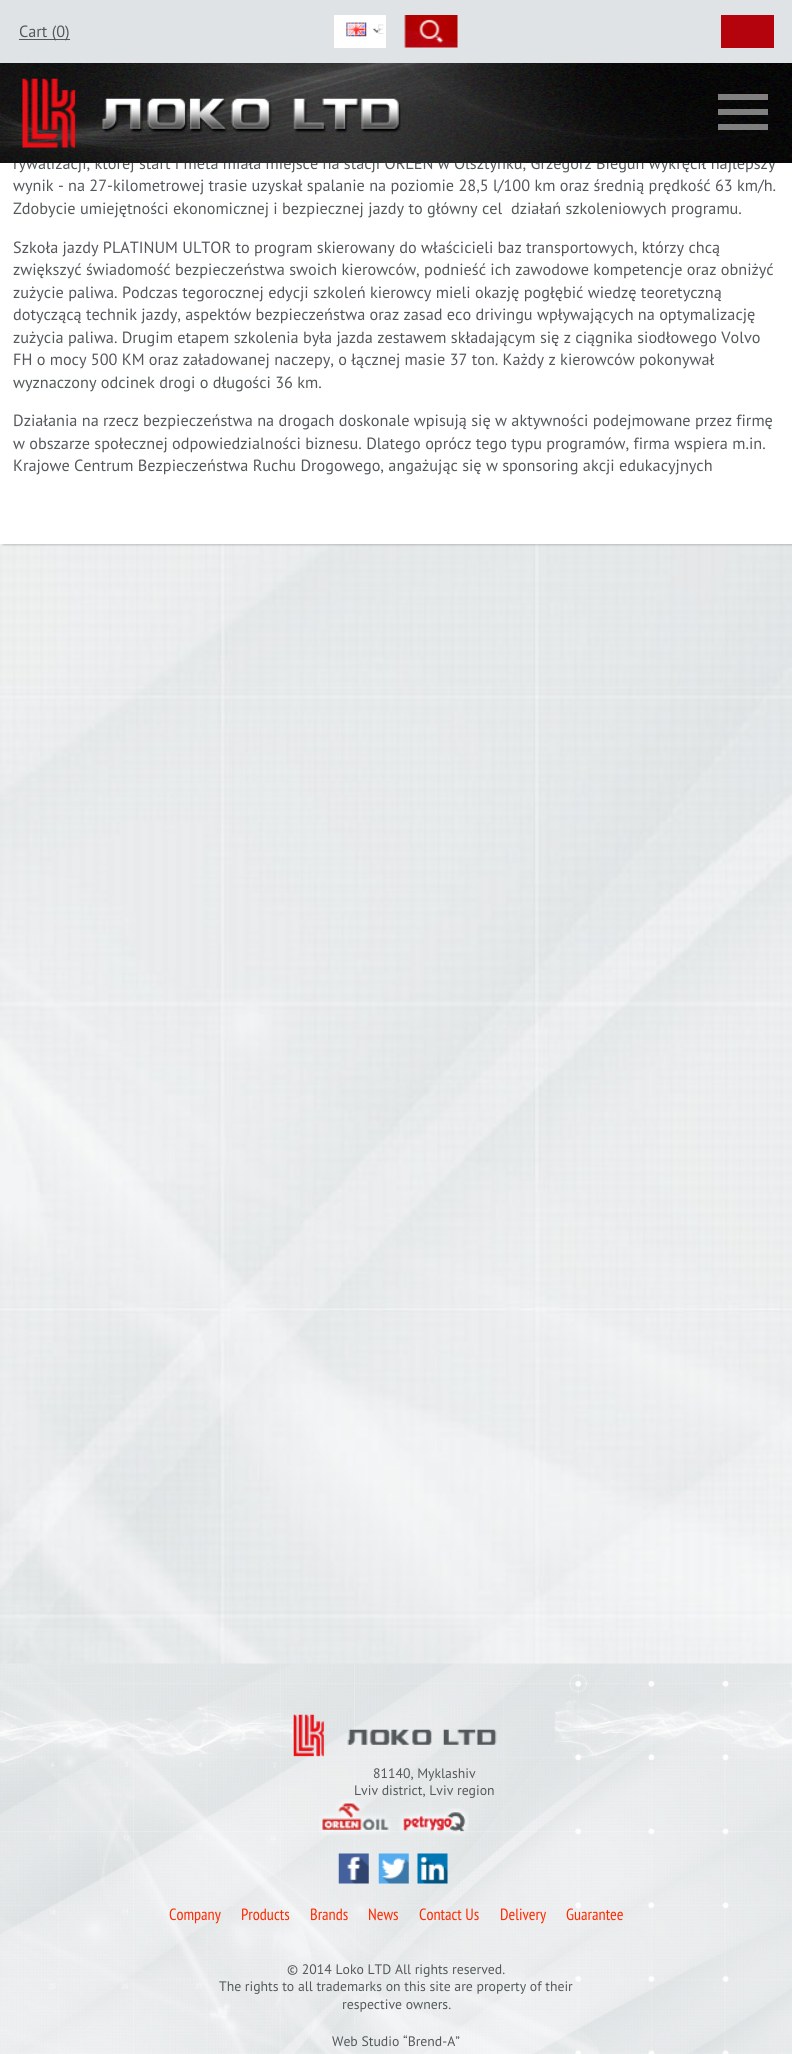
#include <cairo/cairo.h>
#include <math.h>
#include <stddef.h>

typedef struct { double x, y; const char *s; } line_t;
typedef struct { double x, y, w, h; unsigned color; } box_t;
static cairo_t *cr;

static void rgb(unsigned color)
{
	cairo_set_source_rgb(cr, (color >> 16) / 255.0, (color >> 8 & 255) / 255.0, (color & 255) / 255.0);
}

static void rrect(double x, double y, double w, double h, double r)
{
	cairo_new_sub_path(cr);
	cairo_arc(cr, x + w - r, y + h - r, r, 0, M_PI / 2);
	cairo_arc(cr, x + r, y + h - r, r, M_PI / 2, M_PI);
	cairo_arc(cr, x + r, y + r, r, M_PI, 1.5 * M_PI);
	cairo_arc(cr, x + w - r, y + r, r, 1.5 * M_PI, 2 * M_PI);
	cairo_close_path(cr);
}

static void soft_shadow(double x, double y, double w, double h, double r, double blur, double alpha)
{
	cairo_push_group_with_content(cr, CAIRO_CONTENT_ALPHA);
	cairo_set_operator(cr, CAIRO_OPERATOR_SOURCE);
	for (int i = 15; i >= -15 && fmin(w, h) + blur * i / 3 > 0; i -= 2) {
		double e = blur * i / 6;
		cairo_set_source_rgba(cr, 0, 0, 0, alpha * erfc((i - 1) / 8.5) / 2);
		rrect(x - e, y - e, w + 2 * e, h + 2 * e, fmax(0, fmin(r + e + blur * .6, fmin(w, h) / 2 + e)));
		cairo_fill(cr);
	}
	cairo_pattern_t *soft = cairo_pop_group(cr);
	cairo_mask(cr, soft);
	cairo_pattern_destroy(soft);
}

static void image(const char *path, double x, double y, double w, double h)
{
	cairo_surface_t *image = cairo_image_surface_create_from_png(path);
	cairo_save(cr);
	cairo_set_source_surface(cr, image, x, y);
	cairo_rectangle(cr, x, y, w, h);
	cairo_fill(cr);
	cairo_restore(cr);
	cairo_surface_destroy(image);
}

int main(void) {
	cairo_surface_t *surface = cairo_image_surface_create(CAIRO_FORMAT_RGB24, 792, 2054);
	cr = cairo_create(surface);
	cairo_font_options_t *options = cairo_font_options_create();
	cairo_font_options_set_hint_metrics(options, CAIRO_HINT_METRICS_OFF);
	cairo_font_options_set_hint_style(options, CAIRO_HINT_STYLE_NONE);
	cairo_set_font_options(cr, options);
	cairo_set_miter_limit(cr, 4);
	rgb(0xffffff);
	cairo_paint(cr);
	image("img/1.png", 0, 544, 792, 1120);
	rgb(0x000000);
	soft_shadow(3, -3, 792, 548, 0, 1, 0.2);
	{
		static const box_t items[] = {
			{0, 0, 792, 63, 0xdfe3e6},
			{19, 39, 51, 1, 0x53585a},
			{334, 15, 52, 33, 0xffffff},
		};
		for (size_t i = 0; i < sizeof items / sizeof *items; i++) {
			rgb(items[i].color);
			cairo_rectangle(cr, items[i].x, items[i].y, items[i].w, items[i].h);
			cairo_fill(cr);
		}
	}
	image("img/2.png", 373, 28, 8, 5);
	image("img/3.png", 346, 22, 21, 15);
	image("img/4.png", 404, 15, 54, 33);
	rgb(0xb4030d);
	cairo_rectangle(cr, 721, 15, 53, 33);
	cairo_fill(cr);
	rgb(0xffffff);
	cairo_rectangle(cr, 1, 163, 791, 381);
	cairo_fill(cr);
	image("img/7.png", 0, 1663, 792, 391);
	image("img/8.png", 293, 1714, 204, 43);
	image("img/9.png", 319, 1799, 72, 36);
	image("img/10.png", 399, 1808, 70, 28);
	image("img/11.png", 338, 1853, 31, 31);
	image("img/12.png", 378, 1853, 31, 31);
	image("img/13.png", 417, 1853, 31, 31);
	cairo_select_font_face(cr, "PT Sans", CAIRO_FONT_SLANT_NORMAL, CAIRO_FONT_WEIGHT_NORMAL);
	cairo_set_font_size(cr, 16.25);
	rgb(0x53585a);
	cairo_move_to(cr, 19, 37);
	cairo_show_text(cr, "Cart (0)");
	cairo_set_font_size(cr, 13.75);
	rgb(0xe3e6e8);
	cairo_move_to(cr, 377, 34);
	cairo_show_text(cr, "E");
	cairo_set_font_size(cr, 16.25);
	rgb(0x53585a);
	cairo_move_to(cr, 13, 169);
	cairo_show_text(cr, "rywalizacji, której start i meta miała miejsce na stacji ORLEN w Olsztynku, Grzegorz Biegun wykręcił najlepszy");
	image("img/5.png", 0, 63, 792, 100);
	{
		static const box_t items[] = {
			{718, 124, 50, 6, 0x808080},
			{718, 109, 50, 6, 0x808080},
			{718, 94, 50, 6, 0x808080},
		};
		for (size_t i = 0; i < sizeof items / sizeof *items; i++) {
			rgb(items[i].color);
			cairo_rectangle(cr, items[i].x, items[i].y, items[i].w, items[i].h);
			cairo_fill(cr);
		}
	}
	image("img/6.png", 22, 78, 379, 70);
	rgb(0x53585a);
	{
		static const line_t items[] = {
			{13, 191, "wynik - na 27-kilometrowej trasie uzyskał spalanie na poziomie 28,5 l/100 km oraz średnią prędkość 63 km/h."},
			{13, 214, "Zdobycie umiejętności ekonomicznej i bezpiecznej jazdy to główny cel  działań szkoleniowych programu."},
			{13, 253, "Szkoła jazdy PLATINUM ULTOR to program skierowany do właścicieli baz transportowych, którzy chcą"},
			{13, 275, "zwiększyć świadomość bezpieczeństwa swoich kierowców, podnieść ich zawodowe kompetencje oraz obniżyć"},
			{13, 298, "zużycie paliwa. Podczas tegorocznej edycji szkoleń kierowcy mieli okazję pogłębić wiedzę teoretyczną"},
			{13, 320, "dotyczącą technik jazdy, aspektów bezpieczeństwa oraz zasad eco drivingu wpływających na optymalizację"},
			{13, 343, "zużycia paliwa. Drugim etapem szkolenia była jazda zestawem składającym się z ciągnika siodłowego Volvo"},
			{13, 365, "FH o mocy 500 KM oraz załadowanej naczepy, o łącznej masie 37 ton. Każdy z kierowców pokonywał"},
			{13, 388, "wyznaczony odcinek drogi o długości 36 km."},
			{13, 426, "Działania na rzecz bezpieczeństwa na drogach doskonale wpisują się w aktywności podejmowane przez firmę"},
			{13, 449, "w obszarze społecznej odpowiedzialności biznesu. Dlatego oprócz tego typu programów, firma wspiera m.in."},
			{13, 471, "Krajowe Centrum Bezpieczeństwa Ruchu Drogowego, angażując się w sponsoring akcji edukacyjnych"},
		};
		for (size_t i = 0; i < sizeof items / sizeof *items; i++) {
			cairo_move_to(cr, items[i].x, items[i].y);
			cairo_show_text(cr, items[i].s);
		}
	}
	cairo_set_font_size(cr, 13.75);
	cairo_move_to(cr, 373, 1778);
	cairo_show_text(cr, "81140, Myklashiv");
	cairo_move_to(cr, 354, 1795);
	cairo_show_text(cr, "Lviv district, Lviv region");
	cairo_select_font_face(cr, "PT Sans Narrow", CAIRO_FONT_SLANT_NORMAL, CAIRO_FONT_WEIGHT_NORMAL);
	cairo_set_font_size(cr, 16.25);
	rgb(0xff2a00);
	{
		static const line_t items[] = {
			{169, 1920, "Company"},
			{241, 1920, "Products"},
			{310, 1920, "Brands"},
			{368, 1920, "News"},
			{419, 1920, "Contact Us"},
			{500, 1920, "Delivery"},
			{566, 1920, "Guarantee"},
		};
		for (size_t i = 0; i < sizeof items / sizeof *items; i++) {
			cairo_move_to(cr, items[i].x, items[i].y);
			cairo_show_text(cr, items[i].s);
		}
	}
	cairo_select_font_face(cr, "PT Sans", CAIRO_FONT_SLANT_NORMAL, CAIRO_FONT_WEIGHT_NORMAL);
	cairo_set_font_size(cr, 13.75);
	rgb(0x53585a);
	{
		static const line_t items[] = {
			{287, 1974, "© 2014 Loko LTD All rights reserved."},
			{219, 1991, "The rights to all trademarks on this site are property of their"},
			{342, 2009, "respective owners."},
			{332, 2046, "Web Studio “Brend-A”"},
		};
		for (size_t i = 0; i < sizeof items / sizeof *items; i++) {
			cairo_move_to(cr, items[i].x, items[i].y);
			cairo_show_text(cr, items[i].s);
		}
	}
	cairo_surface_write_to_png(surface, "page.png");
	cairo_font_options_destroy(options);
	cairo_destroy(cr);
	cairo_surface_destroy(surface);
	return 0;
}
